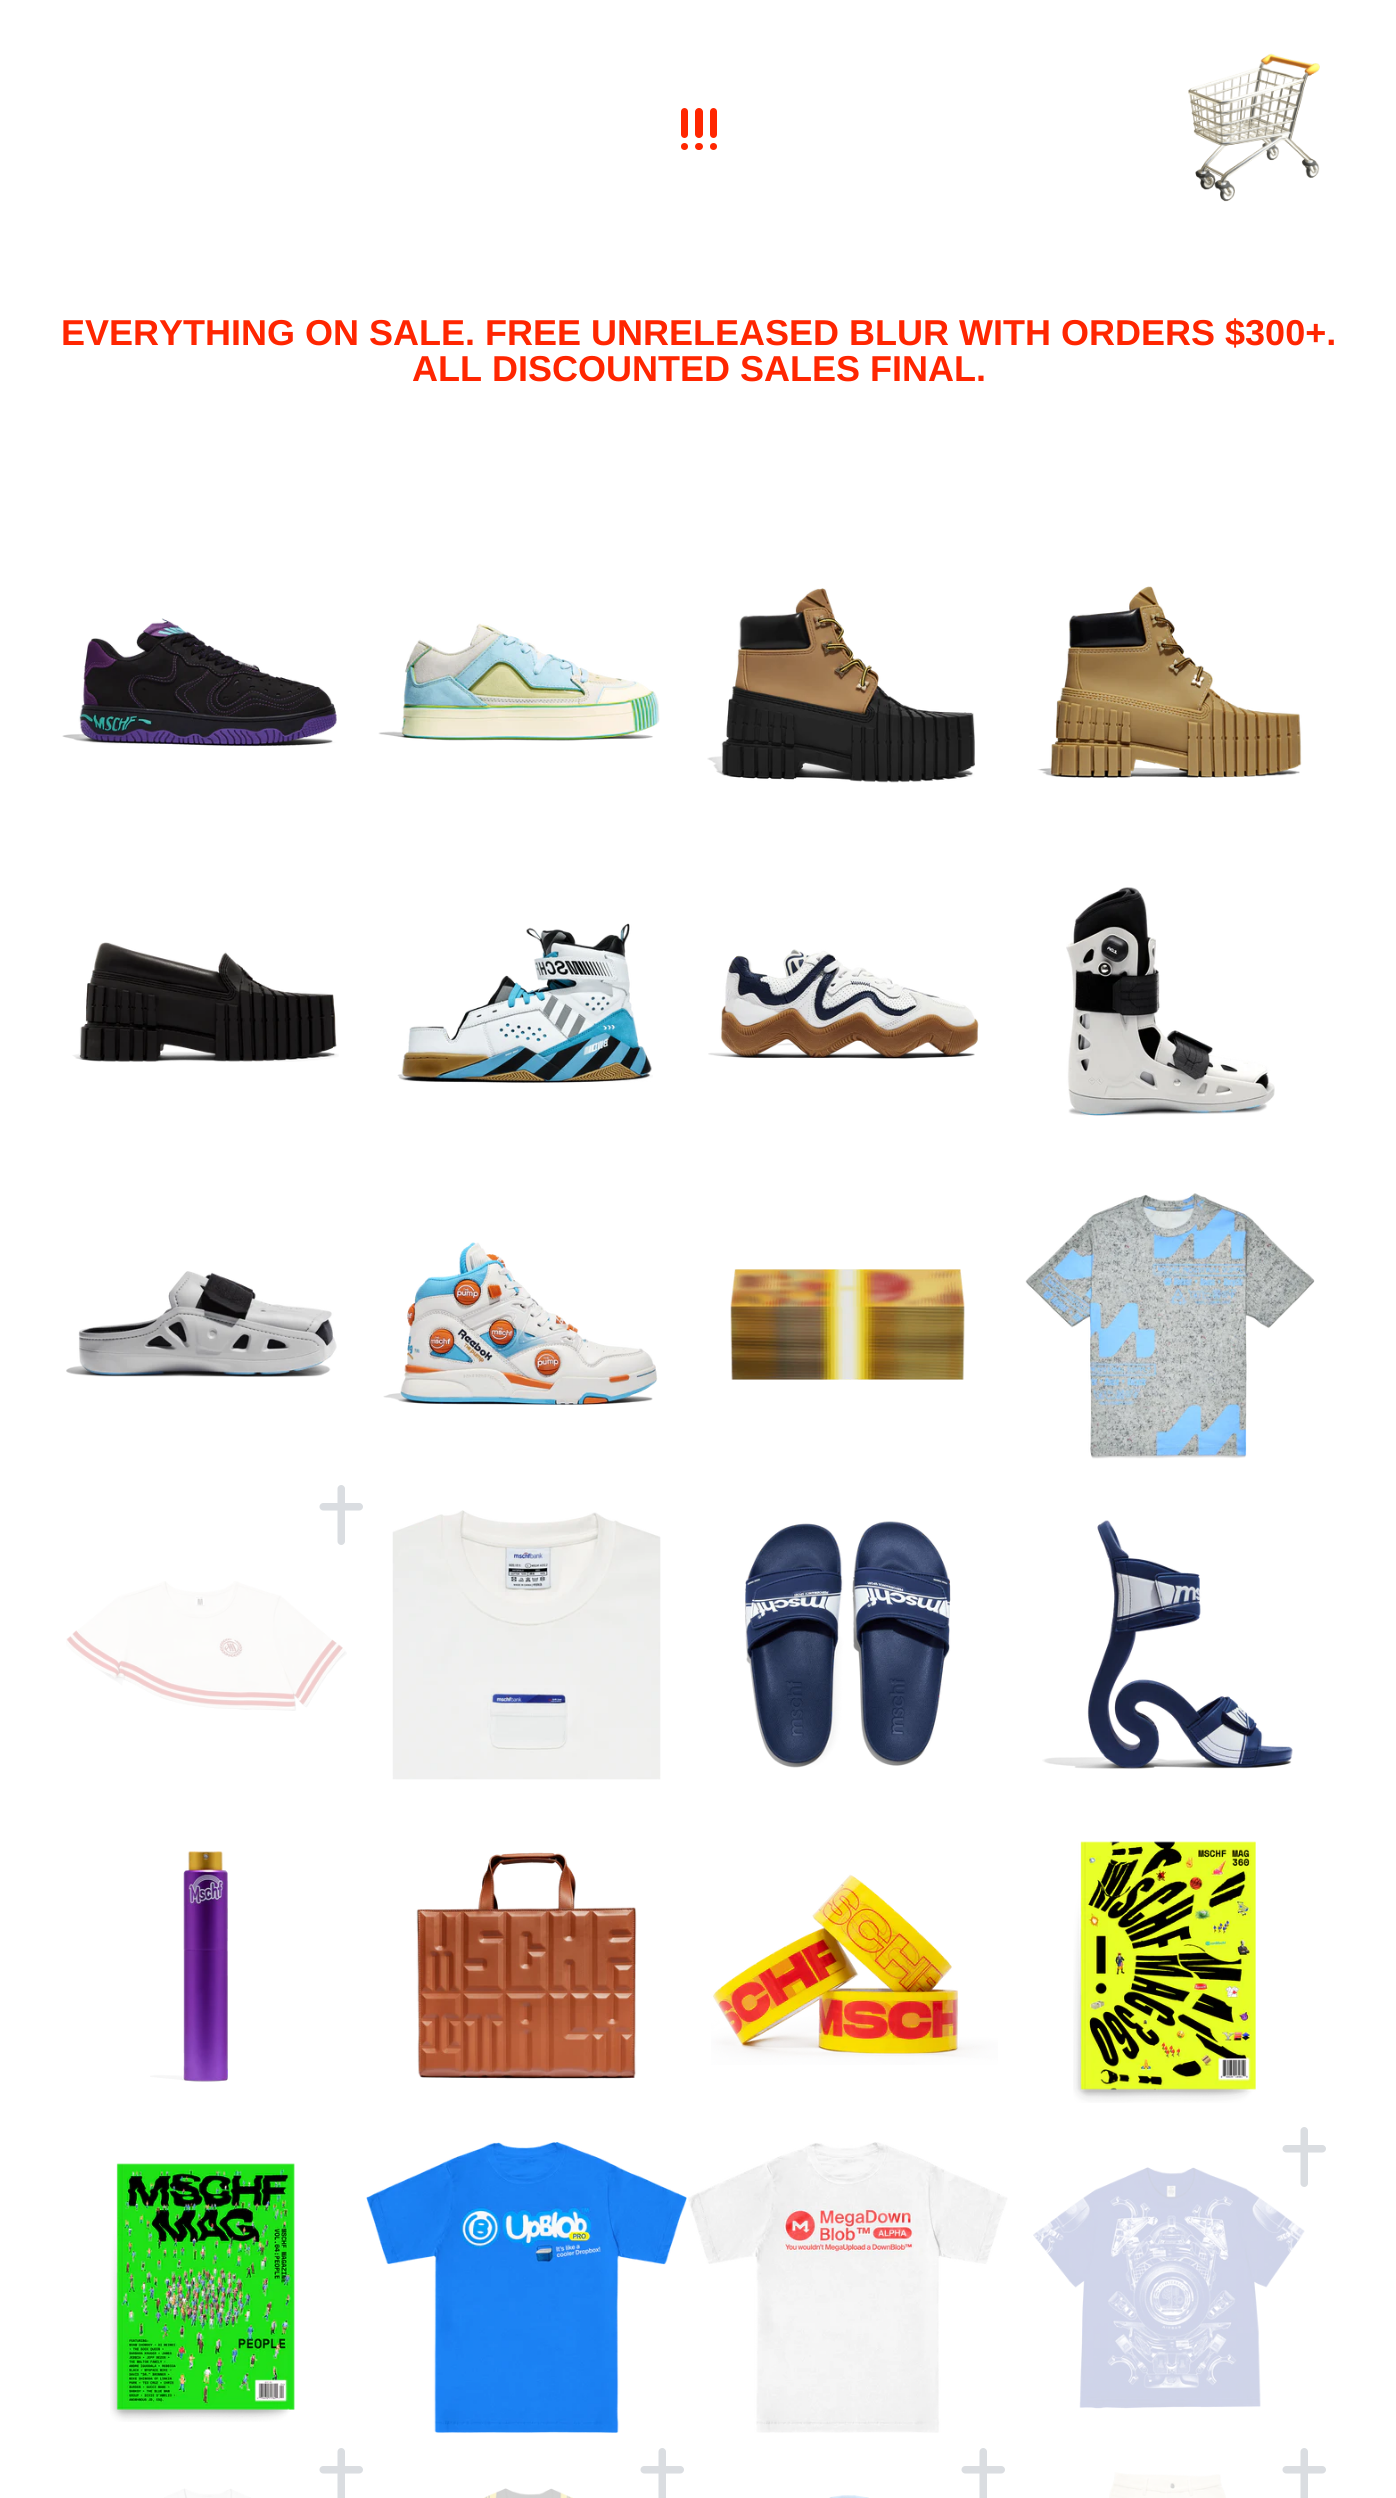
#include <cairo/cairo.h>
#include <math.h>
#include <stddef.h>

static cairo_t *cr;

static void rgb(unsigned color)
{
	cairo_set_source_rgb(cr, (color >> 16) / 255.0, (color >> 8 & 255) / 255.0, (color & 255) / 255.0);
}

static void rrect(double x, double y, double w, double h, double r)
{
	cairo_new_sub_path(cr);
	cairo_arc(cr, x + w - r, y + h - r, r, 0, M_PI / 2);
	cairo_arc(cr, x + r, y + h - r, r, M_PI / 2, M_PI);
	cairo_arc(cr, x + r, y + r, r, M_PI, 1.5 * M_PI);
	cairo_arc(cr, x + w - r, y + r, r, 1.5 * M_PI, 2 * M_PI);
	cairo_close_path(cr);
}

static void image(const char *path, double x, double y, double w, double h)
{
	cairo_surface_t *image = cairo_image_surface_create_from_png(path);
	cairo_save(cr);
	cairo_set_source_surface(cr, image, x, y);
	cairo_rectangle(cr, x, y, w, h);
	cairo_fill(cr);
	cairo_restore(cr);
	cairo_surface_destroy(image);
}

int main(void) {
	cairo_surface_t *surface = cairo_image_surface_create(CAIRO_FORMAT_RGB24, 1396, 2498);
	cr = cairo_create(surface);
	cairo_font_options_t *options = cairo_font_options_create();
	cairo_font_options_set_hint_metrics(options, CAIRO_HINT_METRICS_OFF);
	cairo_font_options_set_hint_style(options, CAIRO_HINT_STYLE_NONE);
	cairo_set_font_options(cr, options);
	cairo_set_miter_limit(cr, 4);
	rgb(0xffffff);
	cairo_paint(cr);
	rgb(0xff2600);
	rrect(710, 108, 7, 30, 3.5);
	cairo_fill(cr);
	rrect(695, 108, 8, 30, 4);
	cairo_fill(cr);
	rrect(681, 108, 7, 30, 3.5);
	cairo_fill(cr);
	cairo_arc(cr, 713.5, 146.5, 3.5, 0, 2 * M_PI);
	cairo_fill(cr);
	rrect(695, 143, 8, 7, 3.5);
	cairo_fill(cr);
	cairo_arc(cr, 684.5, 146.5, 3.5, 0, 2 * M_PI);
	cairo_fill(cr);
	image("img/1.png", 1188, 53, 132, 149);
	image("img/2.png", 1188, 63, 132, 139);
	image("img/3.png", 62, 618, 275, 129);
	image("img/4.png", 378, 623, 282, 118);
	image("img/5.png", 707, 588, 268, 195);
	image("img/6.png", 1037, 586, 265, 192);
	image("img/7.png", 72, 942, 267, 120);
	image("img/8.png", 397, 923, 256, 160);
	image("img/9.png", 708, 949, 271, 110);
	image("img/10.png", 1066, 887, 209, 229);
	image("img/11.png", 66, 1271, 271, 106);
	image("img/12.png", 383, 1242, 275, 163);
	image("img/13.png", 730, 1269, 235, 111);
	image("img/14.png", 1025, 1193, 290, 266);
	image("img/15.png", 319, 1485, 44, 60);
	image("img/16.png", 66, 1581, 281, 130);
	image("img/17.png", 392, 1510, 269, 270);
	image("img/18.png", 745, 1521, 206, 247);
	image("img/19.png", 1042, 1520, 251, 249);
	image("img/20.png", 150, 1851, 78, 231);
	image("img/21.png", 416, 1852, 221, 227);
	image("img/22.png", 711, 1874, 287, 191);
	image("img/23.png", 1073, 1841, 183, 262);
	image("img/24.png", 110, 2163, 185, 259);
	image("img/25.png", 366, 2142, 321, 291);
	image("img/26.png", 688, 2142, 320, 291);
	image("img/27.png", 1033, 2167, 272, 242);
	image("img/15.png", 1282, 2127, 44, 60);
	image("img/28.png", 164, 2488, 87, 10);
	image("img/29.png", 319, 2448, 44, 50);
	image("img/30.png", 484, 2488, 89, 10);
	image("img/29.png", 640, 2448, 44, 50);
	image("img/31.png", 829, 2495, 40, 3);
	image("img/29.png", 961, 2448, 44, 50);
	image("img/32.png", 1109, 2472, 117, 26);
	image("img/29.png", 1282, 2448, 44, 50);
	cairo_select_font_face(cr, "Liberation Sans", CAIRO_FONT_SLANT_NORMAL, CAIRO_FONT_WEIGHT_BOLD);
	cairo_set_font_size(cr, 36);
	rgb(0xff2601);
	cairo_move_to(cr, 61, 345);
	cairo_show_text(cr, "EVERYTHING ON SALE. FREE UNRELEASED BLUR WITH ORDERS $300+.");
	cairo_move_to(cr, 412, 381);
	cairo_show_text(cr, "ALL DISCOUNTED SALES FINAL.");
	cairo_surface_write_to_png(surface, "page.png");
	cairo_font_options_destroy(options);
	cairo_destroy(cr);
	cairo_surface_destroy(surface);
	return 0;
}
